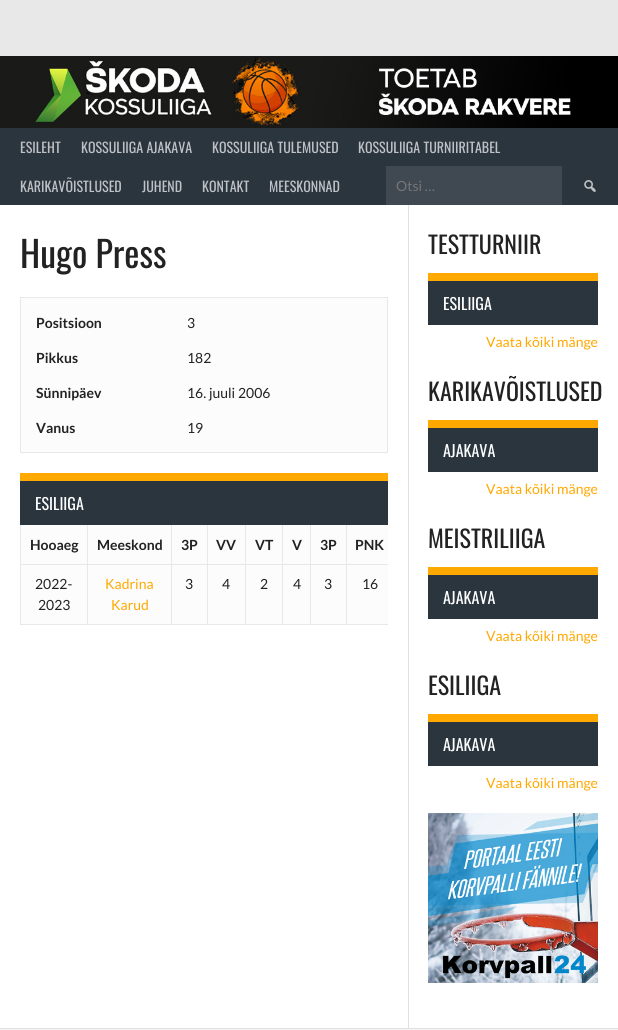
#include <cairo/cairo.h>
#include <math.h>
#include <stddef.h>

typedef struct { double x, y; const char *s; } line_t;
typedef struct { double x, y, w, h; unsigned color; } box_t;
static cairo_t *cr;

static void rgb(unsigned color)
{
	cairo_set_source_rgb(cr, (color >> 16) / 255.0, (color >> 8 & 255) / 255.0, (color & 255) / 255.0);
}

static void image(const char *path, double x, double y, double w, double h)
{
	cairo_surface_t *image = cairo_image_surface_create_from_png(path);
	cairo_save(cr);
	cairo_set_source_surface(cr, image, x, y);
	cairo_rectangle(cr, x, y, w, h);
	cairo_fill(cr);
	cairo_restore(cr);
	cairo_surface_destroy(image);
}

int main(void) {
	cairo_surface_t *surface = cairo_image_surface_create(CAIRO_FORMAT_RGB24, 618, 1030);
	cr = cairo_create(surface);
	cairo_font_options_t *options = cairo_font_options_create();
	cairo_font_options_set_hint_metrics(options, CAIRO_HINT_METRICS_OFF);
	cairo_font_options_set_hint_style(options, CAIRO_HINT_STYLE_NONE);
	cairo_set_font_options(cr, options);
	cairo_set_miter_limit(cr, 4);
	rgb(0xe8e8e8);
	cairo_paint(cr);
	image("img/1.png", 0, 56, 618, 72);
	rgb(0x2b353e);
	cairo_rectangle(cr, 0, 128, 618, 77);
	cairo_fill(cr);
	rgb(0x404951);
	cairo_rectangle(cr, 386, 166, 176, 39);
	cairo_fill(cr);
	image("img/2.png", 584, 180, 12, 12);
	rgb(0xffffff);
	cairo_rectangle(cr, 0, 205, 618, 823);
	cairo_fill(cr);
	rgb(0xfcfcfc);
	cairo_rectangle(cr, 20.5, 297.5, 367, 155);
	cairo_fill_preserve(cr);
	rgb(0xe8e8e8);
	cairo_set_line_width(cr, 1);
	cairo_stroke(cr);
	{
		static const box_t items[] = {
			{20, 624, 368, 1, 0xe8e8e8},
			{20, 524, 1, 101, 0xe8e8e8},
			{21, 525, 367, 99, 0xfcfcfc},
			{346, 564, 42, 1, 0xe8e8e8},
			{346, 564, 1, 61, 0xe8e8e8},
			{310, 564, 37, 1, 0xe8e8e8},
			{310, 564, 1, 61, 0xe8e8e8},
			{282, 564, 29, 1, 0xe8e8e8},
			{282, 564, 1, 61, 0xe8e8e8},
			{245, 564, 38, 1, 0xe8e8e8},
			{245, 564, 1, 61, 0xe8e8e8},
			{207, 564, 39, 1, 0xe8e8e8},
			{207, 564, 1, 61, 0xe8e8e8},
			{171, 564, 37, 1, 0xe8e8e8},
			{171, 564, 1, 61, 0xe8e8e8},
			{87, 564, 85, 1, 0xe8e8e8},
			{87, 564, 1, 61, 0xe8e8e8},
			{20, 564, 68, 1, 0xe8e8e8},
			{87, 524, 1, 41, 0xe8e8e8},
			{171, 524, 1, 41, 0xe8e8e8},
			{207, 524, 1, 41, 0xe8e8e8},
			{245, 524, 1, 41, 0xe8e8e8},
			{282, 524, 1, 41, 0xe8e8e8},
			{310, 524, 1, 41, 0xe8e8e8},
			{346, 524, 1, 41, 0xe8e8e8},
			{20, 481, 368, 44, 0x2b353e},
			{20, 473, 368, 8, 0xffa800},
			{408, 205, 1, 823, 0xe0e0e0},
			{428, 281, 170, 44, 0x2b353e},
			{428, 273, 170, 8, 0xffa800},
			{428, 428, 170, 44, 0x2b353e},
			{428, 420, 170, 8, 0xffa800},
			{428, 575, 170, 44, 0x2b353e},
			{428, 567, 170, 8, 0xffa800},
			{428, 722, 170, 44, 0x2b353e},
			{428, 714, 170, 8, 0xffa800},
		};
		for (size_t i = 0; i < sizeof items / sizeof *items; i++) {
			rgb(items[i].color);
			cairo_rectangle(cr, items[i].x, items[i].y, items[i].w, items[i].h);
			cairo_fill(cr);
		}
	}
	image("img/3.png", 428, 813, 170, 170);
	rgb(0xf4f4f4);
	cairo_rectangle(cr, 0, 1029, 618, 1);
	cairo_fill(cr);
	rgb(0xe0e0e0);
	cairo_rectangle(cr, 0, 1028, 618, 1);
	cairo_fill(cr);
	cairo_select_font_face(cr, "Oswald", CAIRO_FONT_SLANT_NORMAL, CAIRO_FONT_WEIGHT_NORMAL);
	cairo_set_font_size(cr, 14);
	rgb(0xbfc2c5);
	{
		static const line_t items[] = {
			{20, 153, "ESILEHT"},
			{81, 153, "KOSSULIIGA AJAKAVA"},
			{212, 153, "KOSSULIIGA TULEMUSED"},
			{358, 153, "KOSSULIIGA TURNIIRITABEL"},
			{20, 192, "KARIKAVÕISTLUSED"},
			{142, 192, "JUHEND"},
			{202, 192, "KONTAKT"},
			{269, 192, "MEESKONNAD"},
		};
		for (size_t i = 0; i < sizeof items / sizeof *items; i++) {
			cairo_move_to(cr, items[i].x, items[i].y);
			cairo_show_text(cr, items[i].s);
		}
	}
	cairo_select_font_face(cr, "Lato", CAIRO_FONT_SLANT_NORMAL, CAIRO_FONT_WEIGHT_NORMAL);
	rgb(0x757575);
	cairo_move_to(cr, 396, 191);
	cairo_show_text(cr, "Otsi …");
	cairo_select_font_face(cr, "Oswald", CAIRO_FONT_SLANT_NORMAL, CAIRO_FONT_WEIGHT_NORMAL);
	cairo_set_font_size(cr, 36);
	rgb(0x222222);
	cairo_move_to(cr, 20, 268);
	cairo_show_text(cr, "Hugo Press");
	cairo_select_font_face(cr, "Lato", CAIRO_FONT_SLANT_NORMAL, CAIRO_FONT_WEIGHT_BOLD);
	cairo_set_font_size(cr, 14);
	cairo_move_to(cr, 36, 328);
	cairo_show_text(cr, "Positsioon");
	cairo_select_font_face(cr, "Lato", CAIRO_FONT_SLANT_NORMAL, CAIRO_FONT_WEIGHT_NORMAL);
	cairo_move_to(cr, 187, 328);
	cairo_show_text(cr, "3");
	cairo_select_font_face(cr, "Lato", CAIRO_FONT_SLANT_NORMAL, CAIRO_FONT_WEIGHT_BOLD);
	cairo_move_to(cr, 36, 363);
	cairo_show_text(cr, "Pikkus");
	cairo_select_font_face(cr, "Lato", CAIRO_FONT_SLANT_NORMAL, CAIRO_FONT_WEIGHT_NORMAL);
	cairo_move_to(cr, 187, 363);
	cairo_show_text(cr, "182");
	cairo_select_font_face(cr, "Lato", CAIRO_FONT_SLANT_NORMAL, CAIRO_FONT_WEIGHT_BOLD);
	cairo_move_to(cr, 36, 398);
	cairo_show_text(cr, "Sünnipäev");
	cairo_select_font_face(cr, "Lato", CAIRO_FONT_SLANT_NORMAL, CAIRO_FONT_WEIGHT_NORMAL);
	cairo_move_to(cr, 187, 398);
	cairo_show_text(cr, "16. juuli 2006");
	cairo_select_font_face(cr, "Lato", CAIRO_FONT_SLANT_NORMAL, CAIRO_FONT_WEIGHT_BOLD);
	cairo_move_to(cr, 36, 433);
	cairo_show_text(cr, "Vanus");
	cairo_select_font_face(cr, "Lato", CAIRO_FONT_SLANT_NORMAL, CAIRO_FONT_WEIGHT_NORMAL);
	cairo_move_to(cr, 187, 433);
	cairo_show_text(cr, "19");
	cairo_select_font_face(cr, "Oswald", CAIRO_FONT_SLANT_NORMAL, CAIRO_FONT_WEIGHT_NORMAL);
	cairo_set_font_size(cr, 16);
	rgb(0xffffff);
	cairo_move_to(cr, 35, 510);
	cairo_show_text(cr, "ESILIIGA");
	cairo_select_font_face(cr, "Lato", CAIRO_FONT_SLANT_NORMAL, CAIRO_FONT_WEIGHT_BOLD);
	cairo_set_font_size(cr, 14);
	rgb(0x222222);
	{
		static const line_t items[] = {
			{30, 550, "Hooaeg"},
			{97, 550, "Meeskond"},
			{181, 550, "3P"},
			{216, 550, "VV"},
			{255, 550, "VT"},
			{292, 550, "V"},
			{320, 550, "3P"},
			{355, 550, "PNK"},
		};
		for (size_t i = 0; i < sizeof items / sizeof *items; i++) {
			cairo_move_to(cr, items[i].x, items[i].y);
			cairo_show_text(cr, items[i].s);
		}
	}
	cairo_select_font_face(cr, "Lato", CAIRO_FONT_SLANT_NORMAL, CAIRO_FONT_WEIGHT_NORMAL);
	cairo_move_to(cr, 35, 589);
	cairo_show_text(cr, "2022-");
	cairo_move_to(cr, 38, 610);
	cairo_show_text(cr, "2023");
	rgb(0xffa800);
	cairo_move_to(cr, 105, 589);
	cairo_show_text(cr, "Kadrina");
	cairo_move_to(cr, 111, 610);
	cairo_show_text(cr, "Karud");
	rgb(0x222222);
	{
		static const line_t items[] = {
			{185, 589, "3"},
			{222, 589, "4"},
			{260, 589, "2"},
			{293, 589, "4"},
			{324, 589, "3"},
			{362, 589, "16"},
		};
		for (size_t i = 0; i < sizeof items / sizeof *items; i++) {
			cairo_move_to(cr, items[i].x, items[i].y);
			cairo_show_text(cr, items[i].s);
		}
	}
	cairo_select_font_face(cr, "Oswald", CAIRO_FONT_SLANT_NORMAL, CAIRO_FONT_WEIGHT_NORMAL);
	cairo_set_font_size(cr, 24);
	cairo_move_to(cr, 428, 254);
	cairo_show_text(cr, "TESTTURNIIR");
	cairo_set_font_size(cr, 16);
	rgb(0xffffff);
	cairo_move_to(cr, 443, 310);
	cairo_show_text(cr, "ESILIIGA");
	cairo_select_font_face(cr, "Lato", CAIRO_FONT_SLANT_NORMAL, CAIRO_FONT_WEIGHT_NORMAL);
	cairo_set_font_size(cr, 14);
	rgb(0xffa800);
	cairo_move_to(cr, 486, 347);
	cairo_show_text(cr, "Vaata kõiki mänge");
	cairo_select_font_face(cr, "Oswald", CAIRO_FONT_SLANT_NORMAL, CAIRO_FONT_WEIGHT_NORMAL);
	cairo_set_font_size(cr, 24);
	rgb(0x222222);
	cairo_move_to(cr, 428, 401);
	cairo_show_text(cr, "KARIKAVÕISTLUSED");
	cairo_set_font_size(cr, 16);
	rgb(0xffffff);
	cairo_move_to(cr, 443, 457);
	cairo_show_text(cr, "AJAKAVA");
	cairo_select_font_face(cr, "Lato", CAIRO_FONT_SLANT_NORMAL, CAIRO_FONT_WEIGHT_NORMAL);
	cairo_set_font_size(cr, 14);
	rgb(0xffa800);
	cairo_move_to(cr, 486, 494);
	cairo_show_text(cr, "Vaata kõiki mänge");
	cairo_select_font_face(cr, "Oswald", CAIRO_FONT_SLANT_NORMAL, CAIRO_FONT_WEIGHT_NORMAL);
	cairo_set_font_size(cr, 24);
	rgb(0x222222);
	cairo_move_to(cr, 428, 548);
	cairo_show_text(cr, "MEISTRILIIGA");
	cairo_set_font_size(cr, 16);
	rgb(0xffffff);
	cairo_move_to(cr, 443, 604);
	cairo_show_text(cr, "AJAKAVA");
	cairo_select_font_face(cr, "Lato", CAIRO_FONT_SLANT_NORMAL, CAIRO_FONT_WEIGHT_NORMAL);
	cairo_set_font_size(cr, 14);
	rgb(0xffa800);
	cairo_move_to(cr, 486, 641);
	cairo_show_text(cr, "Vaata kõiki mänge");
	cairo_select_font_face(cr, "Oswald", CAIRO_FONT_SLANT_NORMAL, CAIRO_FONT_WEIGHT_NORMAL);
	cairo_set_font_size(cr, 24);
	rgb(0x222222);
	cairo_move_to(cr, 428, 695);
	cairo_show_text(cr, "ESILIIGA");
	cairo_set_font_size(cr, 16);
	rgb(0xffffff);
	cairo_move_to(cr, 443, 751);
	cairo_show_text(cr, "AJAKAVA");
	cairo_select_font_face(cr, "Lato", CAIRO_FONT_SLANT_NORMAL, CAIRO_FONT_WEIGHT_NORMAL);
	cairo_set_font_size(cr, 14);
	rgb(0xffa800);
	cairo_move_to(cr, 486, 788);
	cairo_show_text(cr, "Vaata kõiki mänge");
	cairo_surface_write_to_png(surface, "page.png");
	cairo_font_options_destroy(options);
	cairo_destroy(cr);
	cairo_surface_destroy(surface);
	return 0;
}
